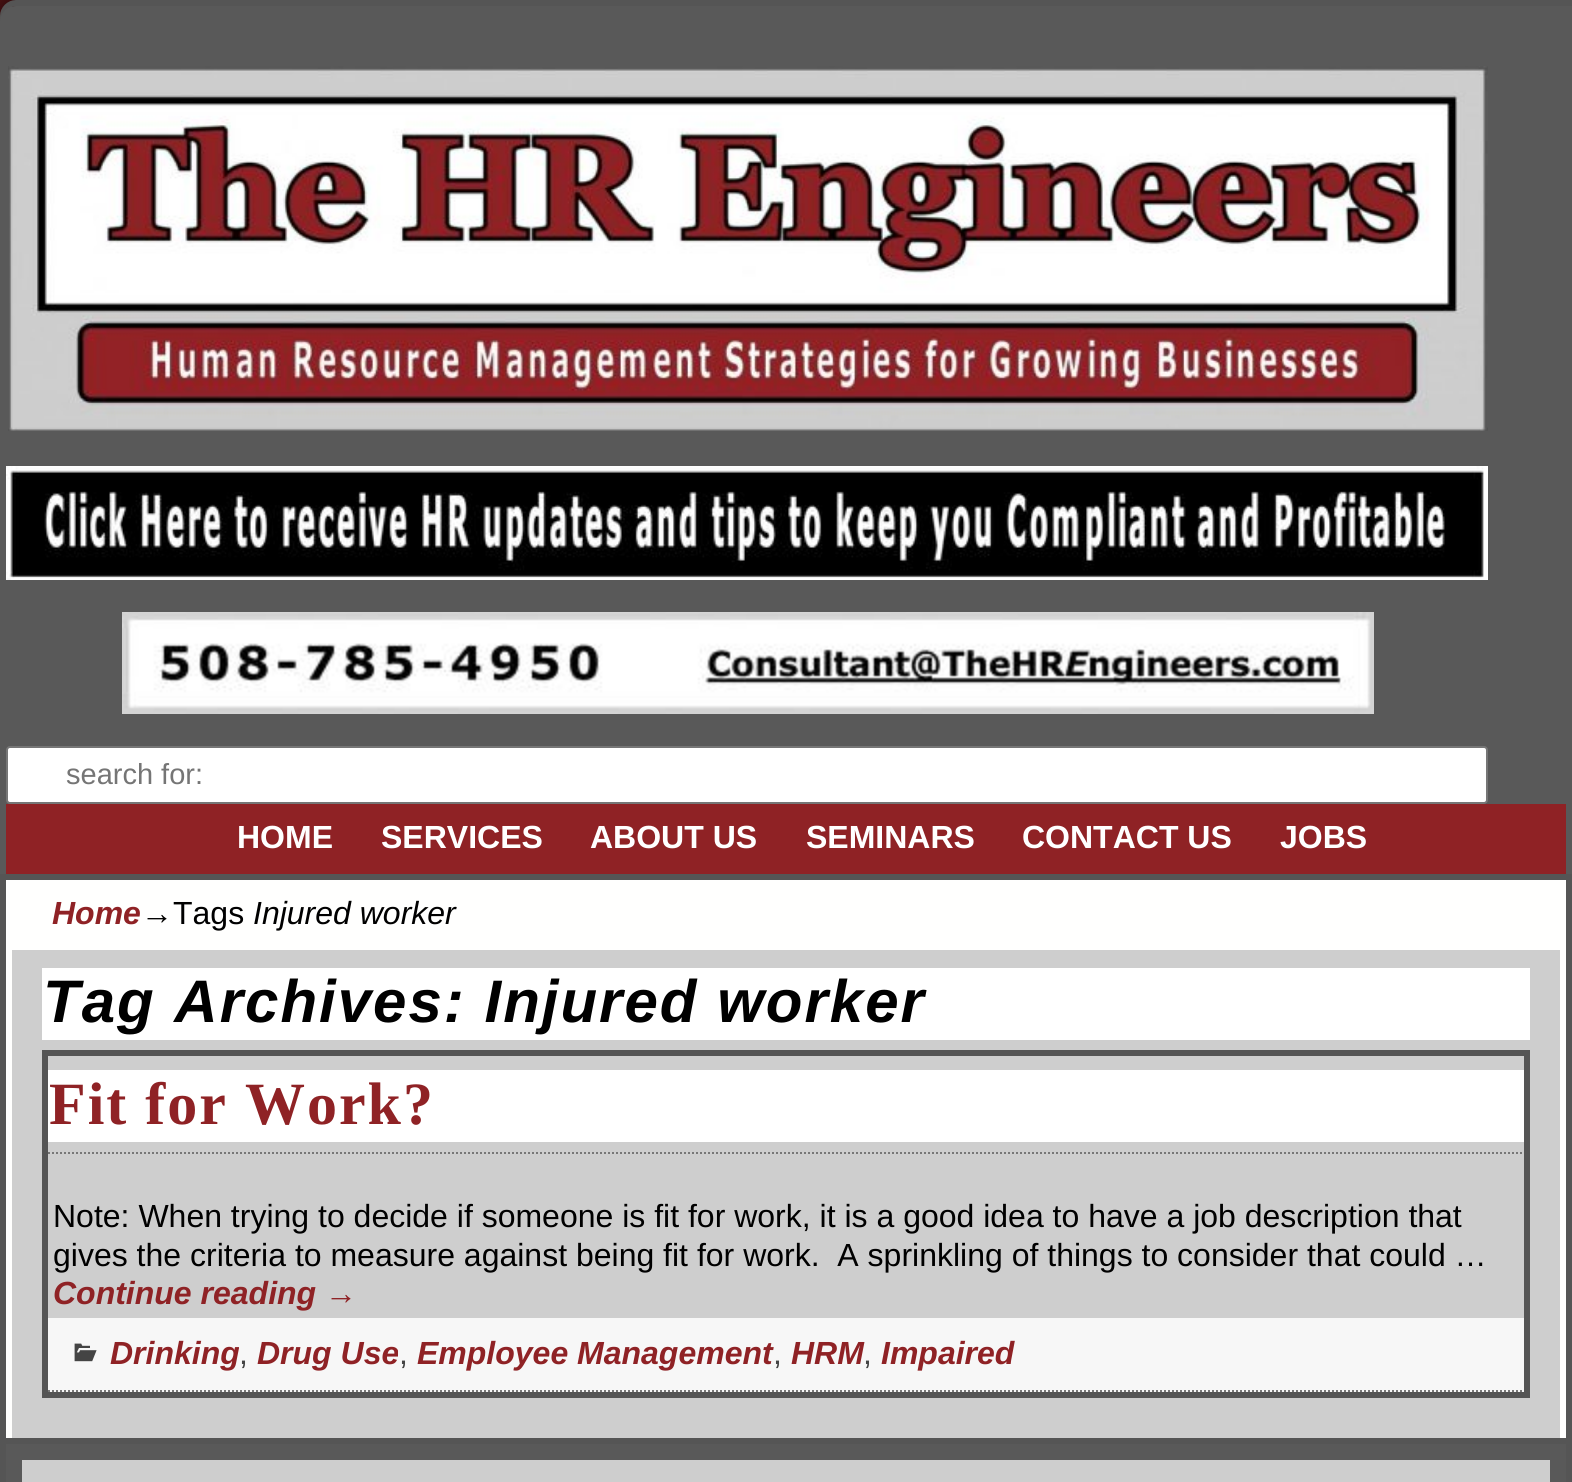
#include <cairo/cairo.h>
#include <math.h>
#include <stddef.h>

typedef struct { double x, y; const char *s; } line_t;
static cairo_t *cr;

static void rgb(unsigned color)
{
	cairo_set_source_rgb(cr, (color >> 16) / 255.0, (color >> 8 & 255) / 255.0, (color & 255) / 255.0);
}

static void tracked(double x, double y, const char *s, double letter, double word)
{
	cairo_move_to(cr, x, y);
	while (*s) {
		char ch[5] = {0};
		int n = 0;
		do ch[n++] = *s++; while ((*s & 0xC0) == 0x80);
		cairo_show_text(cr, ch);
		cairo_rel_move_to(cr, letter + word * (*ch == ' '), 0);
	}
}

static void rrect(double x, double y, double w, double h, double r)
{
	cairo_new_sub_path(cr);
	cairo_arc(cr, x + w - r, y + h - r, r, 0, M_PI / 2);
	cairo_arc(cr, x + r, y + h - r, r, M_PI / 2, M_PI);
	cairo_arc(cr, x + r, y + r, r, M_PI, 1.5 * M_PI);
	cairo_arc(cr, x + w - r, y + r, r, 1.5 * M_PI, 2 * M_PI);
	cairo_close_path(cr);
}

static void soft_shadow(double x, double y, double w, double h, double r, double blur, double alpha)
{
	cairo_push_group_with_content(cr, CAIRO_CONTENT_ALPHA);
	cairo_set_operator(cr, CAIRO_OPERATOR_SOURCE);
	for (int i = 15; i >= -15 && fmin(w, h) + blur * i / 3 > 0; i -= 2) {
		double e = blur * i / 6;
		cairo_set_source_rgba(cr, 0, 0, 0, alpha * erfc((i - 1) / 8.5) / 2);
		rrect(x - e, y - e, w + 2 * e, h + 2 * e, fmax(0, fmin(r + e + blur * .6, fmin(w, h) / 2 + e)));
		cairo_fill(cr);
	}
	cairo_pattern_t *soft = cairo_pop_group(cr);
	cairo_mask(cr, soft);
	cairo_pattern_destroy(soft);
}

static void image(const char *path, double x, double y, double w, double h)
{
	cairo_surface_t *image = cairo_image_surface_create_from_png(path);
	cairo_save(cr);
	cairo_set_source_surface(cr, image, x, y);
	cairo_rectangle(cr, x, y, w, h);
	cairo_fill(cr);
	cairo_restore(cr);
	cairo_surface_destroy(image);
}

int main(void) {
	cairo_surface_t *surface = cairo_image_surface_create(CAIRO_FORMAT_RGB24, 1572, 1482);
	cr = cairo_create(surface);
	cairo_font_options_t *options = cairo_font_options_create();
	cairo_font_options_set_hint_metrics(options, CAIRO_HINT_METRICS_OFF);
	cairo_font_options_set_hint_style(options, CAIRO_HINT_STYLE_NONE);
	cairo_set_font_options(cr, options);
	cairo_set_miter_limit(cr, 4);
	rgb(0x8f2225);
	cairo_paint(cr);
	image("img/1.png", 0, 0, 16, 16);
	rgb(0x000000);
	soft_shadow(-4, -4, 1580, 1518, 20, 4, 0.25);
	cairo_new_path(cr);
	cairo_move_to(cr, 16, 3);
	cairo_line_to(cr, 1569, 3);
	cairo_line_to(cr, 1569, 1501);
	cairo_line_to(cr, 16, 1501);
	cairo_curve_to(cr, 9, 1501, 3, 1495, 3, 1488);
	cairo_line_to(cr, 3, 16);
	cairo_curve_to(cr, 3, 9, 9, 3, 16, 3);
	cairo_close_path(cr);
	rgb(0x555555);
	cairo_set_line_width(cr, 6);
	cairo_stroke(cr);
	rgb(0x595959);
	cairo_new_path(cr);
	cairo_move_to(cr, 16, 6);
	cairo_line_to(cr, 1572, 6);
	cairo_line_to(cr, 1572, 874);
	cairo_line_to(cr, 0, 874);
	cairo_line_to(cr, 0, 22);
	cairo_curve_to(cr, 0, 13, 7, 6, 16, 6);
	cairo_close_path(cr);
	cairo_fill(cr);
	image("img/2.png", 8, 66, 1480, 365);
	image("img/3.png", 6, 466, 1482, 114);
	image("img/4.png", 122, 612, 1252, 102);
	rgb(0xffffff);
	rrect(7, 747, 1480, 56, 3);
	cairo_fill_preserve(cr);
	rgb(0x767676);
	cairo_set_line_width(cr, 2);
	cairo_stroke(cr);
	rgb(0x8f2225);
	cairo_rectangle(cr, 6, 804, 1560, 70);
	cairo_fill(cr);
	rgb(0xfffffe);
	cairo_rectangle(cr, 3, 877, 1566, 564);
	cairo_fill_preserve(cr);
	rgb(0x555555);
	cairo_set_line_width(cr, 6);
	cairo_stroke(cr);
	rgb(0xcecece);
	cairo_rectangle(cr, 12, 950, 1548, 488);
	cairo_fill(cr);
	rgb(0xffffff);
	cairo_rectangle(cr, 42, 968, 1488, 72);
	cairo_fill(cr);
	cairo_rectangle(cr, 45, 1053, 1482, 342);
	rgb(0x555555);
	cairo_stroke(cr);
	rgb(0xffffff);
	cairo_rectangle(cr, 48, 1070, 1476, 72);
	cairo_fill(cr);
	cairo_new_path(cr);
	cairo_move_to(cr, 48, 1153);
	cairo_line_to(cr, 1524, 1153);
	rgb(0x777777);
	cairo_set_line_width(cr, 2);
	cairo_set_dash(cr, (double[]){2, 2}, 2, 0);
	cairo_stroke(cr);
	rgb(0xf7f7f7);
	cairo_rectangle(cr, 48, 1318, 1476, 74);
	cairo_fill(cr);
	cairo_new_path(cr);
	cairo_move_to(cr, 48, 1391);
	cairo_line_to(cr, 1524, 1391);
	rgb(0x777777);
	cairo_stroke(cr);
	image("img/5.png", 74, 1343, 23, 19);
	rgb(0x595959);
	cairo_rectangle(cr, 6, 1444, 1560, 38);
	cairo_fill(cr);
	rgb(0xcecece);
	cairo_rectangle(cr, 22, 1460, 1528, 22);
	cairo_fill(cr);
	cairo_select_font_face(cr, "Liberation Sans", CAIRO_FONT_SLANT_NORMAL, CAIRO_FONT_WEIGHT_NORMAL);
	cairo_set_font_size(cr, 29);
	rgb(0x757575);
	cairo_move_to(cr, 66, 784);
	cairo_show_text(cr, "search for:");
	cairo_select_font_face(cr, "Liberation Sans", CAIRO_FONT_SLANT_NORMAL, CAIRO_FONT_WEIGHT_BOLD);
	cairo_set_font_size(cr, 32);
	rgb(0xffffff);
	{
		static const line_t items[] = {
			{237, 848, "HOME"},
			{381, 848, "SERVICES"},
			{590, 848, "ABOUT US"},
			{806, 848, "SEMINARS"},
			{1022, 848, "CONTACT US"},
			{1280, 848, "JOBS"},
		};
		for (size_t i = 0; i < sizeof items / sizeof *items; i++) {
			cairo_move_to(cr, items[i].x, items[i].y);
			cairo_show_text(cr, items[i].s);
		}
	}
	cairo_select_font_face(cr, "Liberation Sans", CAIRO_FONT_SLANT_ITALIC, CAIRO_FONT_WEIGHT_BOLD);
	rgb(0x8f2225);
	cairo_move_to(cr, 52, 924);
	cairo_show_text(cr, "Home");
	cairo_select_font_face(cr, "Liberation Sans", CAIRO_FONT_SLANT_NORMAL, CAIRO_FONT_WEIGHT_NORMAL);
	rgb(0x000000);
	cairo_move_to(cr, 141, 924);
	cairo_show_text(cr, "→Tags");
	cairo_select_font_face(cr, "Liberation Sans", CAIRO_FONT_SLANT_ITALIC, CAIRO_FONT_WEIGHT_NORMAL);
	cairo_move_to(cr, 253, 924);
	cairo_show_text(cr, "Injured worker");
	cairo_select_font_face(cr, "Liberation Sans", CAIRO_FONT_SLANT_ITALIC, CAIRO_FONT_WEIGHT_BOLD);
	cairo_set_font_size(cr, 60);
	tracked(43, 1022, "Tag Archives: Injured worker", 2, 0);
	cairo_select_font_face(cr, "Liberation Serif", CAIRO_FONT_SLANT_NORMAL, CAIRO_FONT_WEIGHT_BOLD);
	rgb(0x8f2225);
	tracked(49, 1124, "Fit for Work?", 2, 0);
	cairo_select_font_face(cr, "Liberation Sans", CAIRO_FONT_SLANT_NORMAL, CAIRO_FONT_WEIGHT_NORMAL);
	cairo_set_font_size(cr, 32);
	rgb(0x000000);
	cairo_move_to(cr, 53, 1227);
	cairo_show_text(cr, "Note: When trying to decide if someone is fit for work, it is a good idea to have a job description that");
	cairo_move_to(cr, 53, 1266);
	cairo_show_text(cr, "gives the criteria to measure against being fit for work.  A sprinkling of things to consider that could …");
	cairo_select_font_face(cr, "Liberation Sans", CAIRO_FONT_SLANT_ITALIC, CAIRO_FONT_WEIGHT_BOLD);
	rgb(0x8f2225);
	{
		static const line_t items[] = {
			{53, 1304, "Continue reading →"},
			{110, 1364, "Drinking"},
			{257, 1364, "Drug Use"},
			{417, 1364, "Employee Management"},
			{791, 1364, "HRM"},
			{881, 1364, "Impaired"},
		};
		for (size_t i = 0; i < sizeof items / sizeof *items; i++) {
			cairo_move_to(cr, items[i].x, items[i].y);
			cairo_show_text(cr, items[i].s);
		}
	}
	cairo_select_font_face(cr, "Liberation Sans", CAIRO_FONT_SLANT_NORMAL, CAIRO_FONT_WEIGHT_NORMAL);
	rgb(0x444444);
	{
		static const line_t items[] = {
			{239, 1364, ","},
			{399, 1364, ","},
			{773, 1364, ","},
			{863, 1364, ","},
		};
		for (size_t i = 0; i < sizeof items / sizeof *items; i++) {
			cairo_move_to(cr, items[i].x, items[i].y);
			cairo_show_text(cr, items[i].s);
		}
	}
	cairo_surface_write_to_png(surface, "page.png");
	cairo_font_options_destroy(options);
	cairo_destroy(cr);
	cairo_surface_destroy(surface);
	return 0;
}
